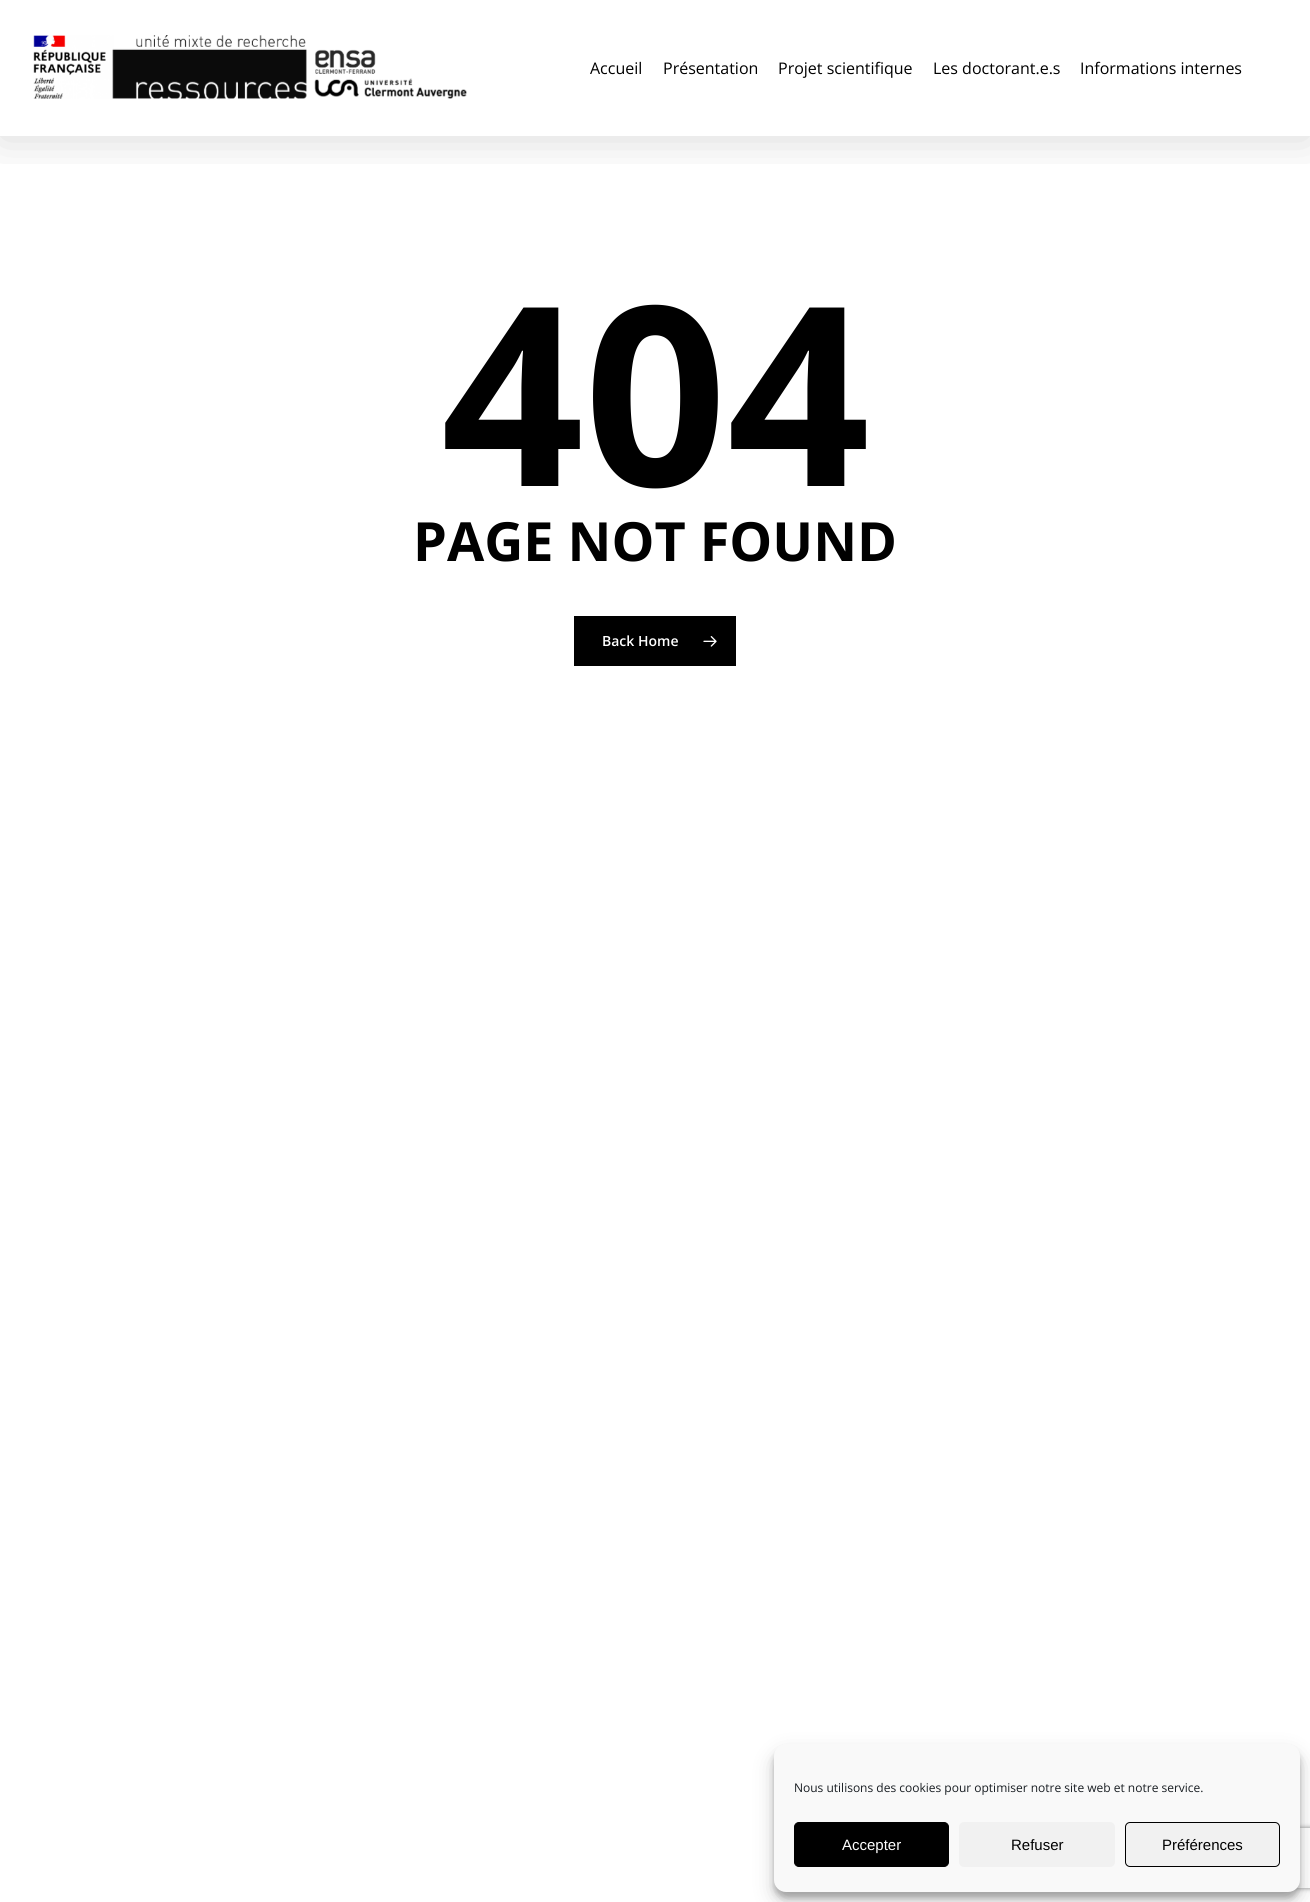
#include <cairo/cairo.h>
#include <math.h>
#include <stddef.h>

typedef struct { double x, y; const char *s; } line_t;
static cairo_t *cr;

static void rgb(unsigned color)
{
	cairo_set_source_rgb(cr, (color >> 16) / 255.0, (color >> 8 & 255) / 255.0, (color & 255) / 255.0);
}

static void rrect(double x, double y, double w, double h, double r)
{
	cairo_new_sub_path(cr);
	cairo_arc(cr, x + w - r, y + h - r, r, 0, M_PI / 2);
	cairo_arc(cr, x + r, y + h - r, r, M_PI / 2, M_PI);
	cairo_arc(cr, x + r, y + r, r, M_PI, 1.5 * M_PI);
	cairo_arc(cr, x + w - r, y + r, r, 1.5 * M_PI, 2 * M_PI);
	cairo_close_path(cr);
}

static void soft_shadow(double x, double y, double w, double h, double r, double blur, double alpha)
{
	cairo_push_group_with_content(cr, CAIRO_CONTENT_ALPHA);
	cairo_set_operator(cr, CAIRO_OPERATOR_SOURCE);
	for (int i = 15; i >= -15 && fmin(w, h) + blur * i / 3 > 0; i -= 2) {
		double e = blur * i / 6;
		cairo_set_source_rgba(cr, 0, 0, 0, alpha * erfc((i - 1) / 8.5) / 2);
		rrect(x - e, y - e, w + 2 * e, h + 2 * e, fmax(0, fmin(r + e + blur * .6, fmin(w, h) / 2 + e)));
		cairo_fill(cr);
	}
	cairo_pattern_t *soft = cairo_pop_group(cr);
	cairo_mask(cr, soft);
	cairo_pattern_destroy(soft);
}

static void image(const char *path, double x, double y, double w, double h)
{
	cairo_surface_t *image = cairo_image_surface_create_from_png(path);
	cairo_save(cr);
	cairo_set_source_surface(cr, image, x, y);
	cairo_rectangle(cr, x, y, w, h);
	cairo_fill(cr);
	cairo_restore(cr);
	cairo_surface_destroy(image);
}

int main(void) {
	cairo_surface_t *surface = cairo_image_surface_create(CAIRO_FORMAT_RGB24, 1310, 1902);
	cr = cairo_create(surface);
	cairo_font_options_t *options = cairo_font_options_create();
	cairo_font_options_set_hint_metrics(options, CAIRO_HINT_METRICS_OFF);
	cairo_font_options_set_hint_style(options, CAIRO_HINT_STYLE_NONE);
	cairo_set_font_options(cr, options);
	cairo_set_miter_limit(cr, 4);
	rgb(0xffffff);
	cairo_paint(cr);
	cairo_save(cr);
	cairo_rectangle(cr, 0, 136, 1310, 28);
	cairo_clip(cr);
	rgb(0x000000);
	soft_shadow(0, 3, 1310, 136, 0, 22.5, 0.15);
	cairo_restore(cr);
	image("img/1.png", 33, 35, 434, 64);
	rgb(0x000000);
	cairo_rectangle(cr, 574, 616, 162, 50);
	cairo_fill(cr);
	image("img/2.png", 703, 636, 14, 11);
	rgb(0x000000);
	soft_shadow(774, 1750, 526, 148, 12, 3, 0.23);
	soft_shadow(774, 1754, 526, 148, 12, 10, 0.19);
	cairo_save(cr);
	cairo_set_fill_rule(cr, CAIRO_FILL_RULE_EVEN_ODD);
	cairo_new_path(cr);
	cairo_move_to(cr, 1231, 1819);
	cairo_line_to(cr, 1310, 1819);
	cairo_line_to(cr, 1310, 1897);
	cairo_line_to(cr, 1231, 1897);
	cairo_close_path(cr);
	cairo_move_to(cr, 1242, 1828);
	cairo_line_to(cr, 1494, 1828);
	cairo_curve_to(cr, 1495, 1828, 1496, 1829, 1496, 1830);
	cairo_line_to(cr, 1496, 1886);
	cairo_curve_to(cr, 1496, 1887, 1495, 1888, 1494, 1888);
	cairo_line_to(cr, 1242, 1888);
	cairo_curve_to(cr, 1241, 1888, 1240, 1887, 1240, 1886);
	cairo_line_to(cr, 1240, 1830);
	cairo_curve_to(cr, 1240, 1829, 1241, 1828, 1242, 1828);
	cairo_close_path(cr);
	cairo_clip(cr);
	rgb(0x808080);
	soft_shadow(1240, 1828, 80, 60, 2, 2.5, 1);
	cairo_restore(cr);
	rgb(0xf9f9f9);
	rrect(774, 1744, 526, 148, 12);
	cairo_fill(cr);
	rgb(0x000000);
	rrect(794.5, 1822.5, 154, 44, 4.5);
	cairo_fill_preserve(cr);
	cairo_set_line_width(cr, 1);
	cairo_stroke(cr);
	rgb(0xf1f1f1);
	rrect(959, 1822, 156, 45, 5);
	cairo_fill(cr);
	rrect(1125.5, 1822.5, 154, 44, 4.5);
	cairo_fill_preserve(cr);
	rgb(0x000000);
	cairo_stroke(cr);
	cairo_select_font_face(cr, "Open Sans", CAIRO_FONT_SLANT_NORMAL, CAIRO_FONT_WEIGHT_NORMAL);
	cairo_set_font_size(cr, 16);
	{
		static const line_t items[] = {
			{590, 74, "Accueil"},
			{663, 74, "Présentation"},
			{778, 74, "Projet scientifique"},
			{933, 74, "Les doctorant.e.s"},
			{1080, 74, "Informations internes"},
		};
		for (size_t i = 0; i < sizeof items / sizeof *items; i++) {
			cairo_move_to(cr, items[i].x, items[i].y);
			cairo_show_text(cr, items[i].s);
		}
	}
	cairo_select_font_face(cr, "Open Sans", CAIRO_FONT_SLANT_NORMAL, CAIRO_FONT_WEIGHT_BOLD);
	cairo_set_font_size(cr, 250);
	cairo_move_to(cr, 441, 486);
	cairo_show_text(cr, "404");
	cairo_set_font_size(cr, 54);
	cairo_move_to(cr, 413, 561);
	cairo_show_text(cr, "PAGE NOT FOUND");
	cairo_select_font_face(cr, "Open Sans SemiBold", CAIRO_FONT_SLANT_NORMAL, CAIRO_FONT_WEIGHT_NORMAL);
	cairo_set_font_size(cr, 14);
	rgb(0xffffff);
	cairo_move_to(cr, 602, 646);
	cairo_show_text(cr, "Back Home");
	cairo_select_font_face(cr, "Open Sans", CAIRO_FONT_SLANT_NORMAL, CAIRO_FONT_WEIGHT_NORMAL);
	cairo_set_font_size(cr, 12);
	rgb(0x191e23);
	cairo_move_to(cr, 794, 1792);
	cairo_show_text(cr, "Nous utilisons des cookies pour optimiser notre site web et notre service.");
	cairo_select_font_face(cr, "Liberation Sans", CAIRO_FONT_SLANT_NORMAL, CAIRO_FONT_WEIGHT_NORMAL);
	cairo_set_font_size(cr, 15);
	rgb(0xffffff);
	cairo_move_to(cr, 842, 1850);
	cairo_show_text(cr, "Accepter");
	rgb(0x000000);
	cairo_move_to(cr, 1011, 1850);
	cairo_show_text(cr, "Refuser");
	cairo_move_to(cr, 1162, 1850);
	cairo_show_text(cr, "Préférences");
	cairo_surface_write_to_png(surface, "page.png");
	cairo_font_options_destroy(options);
	cairo_destroy(cr);
	cairo_surface_destroy(surface);
	return 0;
}
